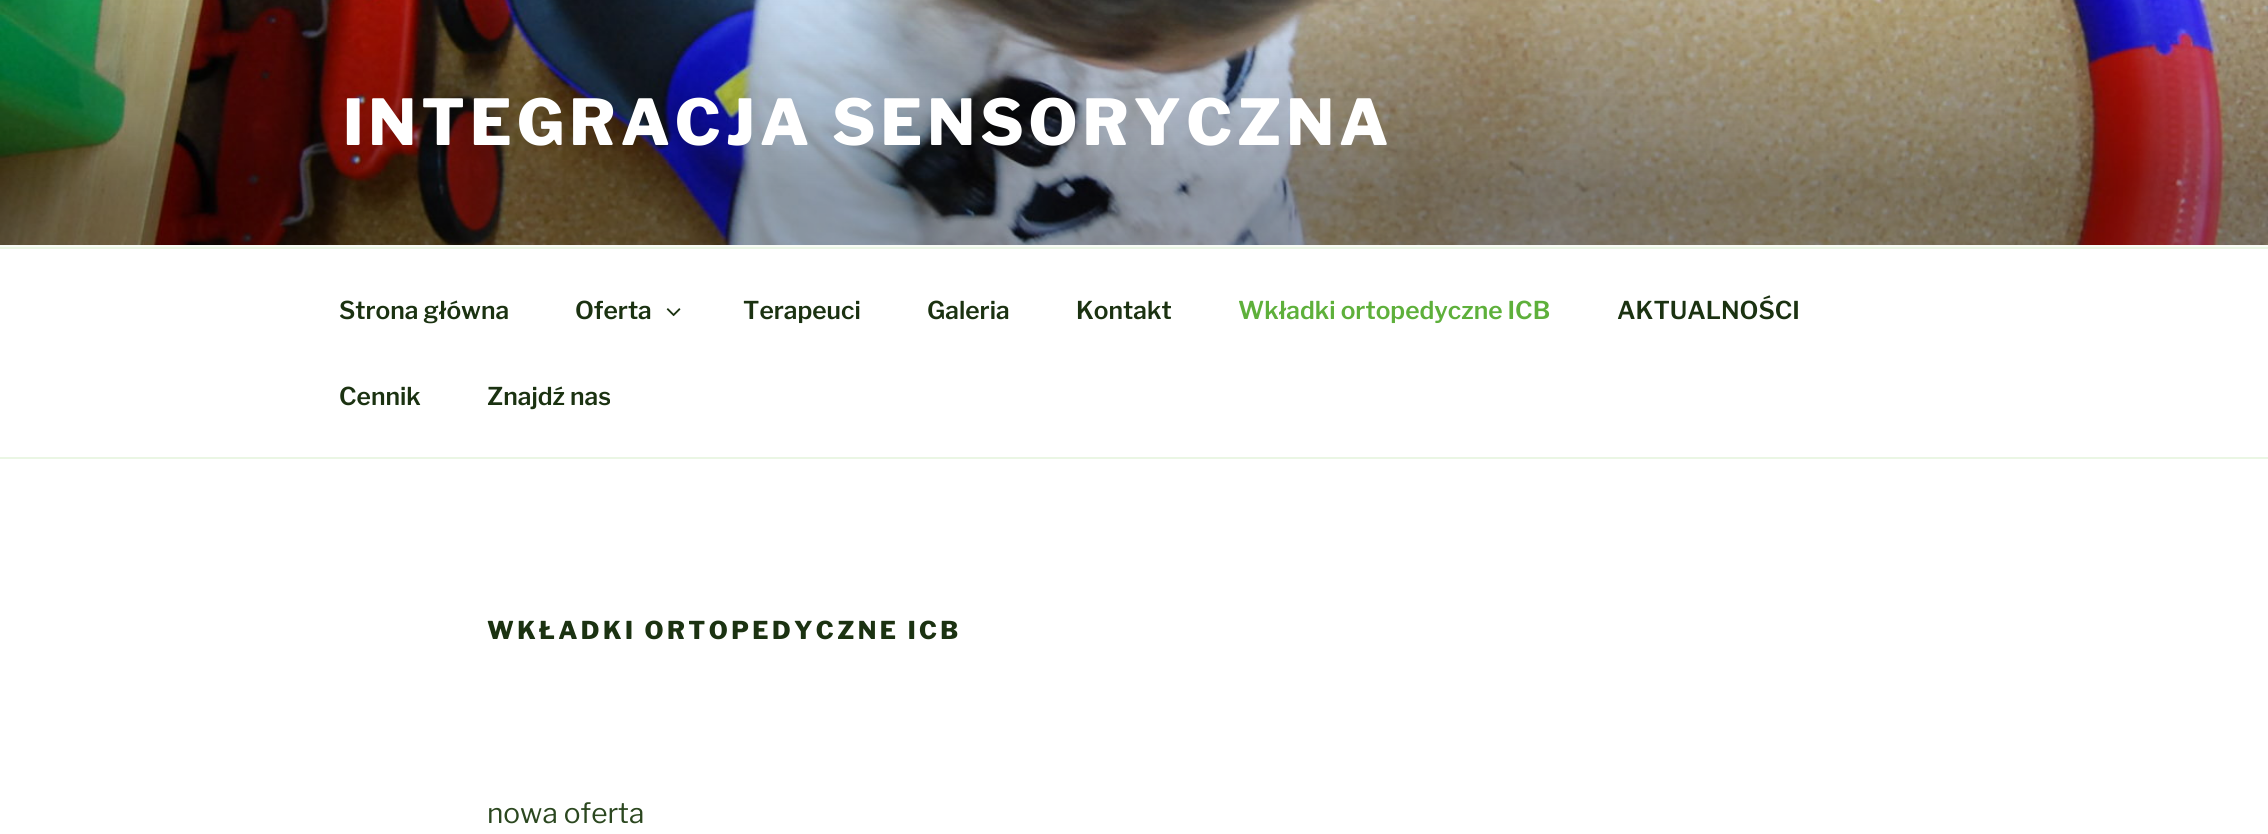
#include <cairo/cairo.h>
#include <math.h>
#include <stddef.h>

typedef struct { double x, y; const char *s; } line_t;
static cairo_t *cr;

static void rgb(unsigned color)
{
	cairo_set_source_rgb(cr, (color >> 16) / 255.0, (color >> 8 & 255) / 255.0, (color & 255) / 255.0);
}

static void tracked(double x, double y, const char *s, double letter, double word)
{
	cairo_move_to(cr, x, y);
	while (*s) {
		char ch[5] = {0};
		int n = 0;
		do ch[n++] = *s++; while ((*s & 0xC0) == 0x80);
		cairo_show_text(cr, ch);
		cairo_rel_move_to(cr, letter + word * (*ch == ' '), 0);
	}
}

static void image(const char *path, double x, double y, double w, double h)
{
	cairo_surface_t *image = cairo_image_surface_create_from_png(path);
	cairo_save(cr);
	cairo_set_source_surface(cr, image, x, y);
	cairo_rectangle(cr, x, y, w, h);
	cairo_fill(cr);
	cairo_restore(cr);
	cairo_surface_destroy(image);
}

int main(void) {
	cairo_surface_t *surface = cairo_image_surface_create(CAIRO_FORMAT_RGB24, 2268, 834);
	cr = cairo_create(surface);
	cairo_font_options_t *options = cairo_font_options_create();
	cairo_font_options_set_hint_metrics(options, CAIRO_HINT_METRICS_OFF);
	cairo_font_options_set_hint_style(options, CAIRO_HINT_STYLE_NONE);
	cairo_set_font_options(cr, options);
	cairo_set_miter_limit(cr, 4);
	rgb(0xffffff);
	cairo_paint(cr);
	rgb(0xf9fcf7);
	cairo_rectangle(cr, 0, 245, 2268, 2);
	cairo_fill(cr);
	image("img/1.png", 0, 0, 2268, 245);
	rgb(0xeaf6e4);
	cairo_rectangle(cr, 0, 247, 2268, 2);
	cairo_fill(cr);
	cairo_rectangle(cr, 0, 457, 2268, 2);
	cairo_fill(cr);
	image("img/2.png", 666, 308, 15, 9);
	cairo_select_font_face(cr, "Libre Franklin ExtraBold", CAIRO_FONT_SLANT_NORMAL, CAIRO_FONT_WEIGHT_NORMAL);
	cairo_set_font_size(cr, 63);
	rgb(0xffffff);
	tracked(343, 145, "INTEGRACJA SENSORYCZNA", 5, 0);
	cairo_select_font_face(cr, "Libre Franklin SemiBold", CAIRO_FONT_SLANT_NORMAL, CAIRO_FONT_WEIGHT_NORMAL);
	cairo_set_font_size(cr, 24.5);
	rgb(0x1b3211);
	{
		static const line_t items[] = {
			{339, 319, "Strona główna"},
			{575, 319, "Oferta"},
			{743, 319, "Terapeuci"},
			{927, 319, "Galeria"},
			{1076, 319, "Kontakt"},
		};
		for (size_t i = 0; i < sizeof items / sizeof *items; i++) {
			cairo_move_to(cr, items[i].x, items[i].y);
			cairo_show_text(cr, items[i].s);
		}
	}
	rgb(0x5eb03b);
	cairo_move_to(cr, 1238, 319);
	cairo_show_text(cr, "Wkładki ortopedyczne ICB");
	rgb(0x1b3211);
	{
		static const line_t items[] = {
			{1617, 319, "AKTUALNOŚCI"},
			{339, 405, "Cennik"},
			{487, 405, "Znajdź nas"},
		};
		for (size_t i = 0; i < sizeof items / sizeof *items; i++) {
			cairo_move_to(cr, items[i].x, items[i].y);
			cairo_show_text(cr, items[i].s);
		}
	}
	cairo_select_font_face(cr, "Libre Franklin ExtraBold", CAIRO_FONT_SLANT_NORMAL, CAIRO_FONT_WEIGHT_NORMAL);
	tracked(487, 639, "WKŁADKI ORTOPEDYCZNE ICB", 3.4, 0);
	cairo_select_font_face(cr, "Libre Franklin", CAIRO_FONT_SLANT_NORMAL, CAIRO_FONT_WEIGHT_NORMAL);
	cairo_set_font_size(cr, 28);
	rgb(0x2b471f);
	cairo_move_to(cr, 487, 823);
	cairo_show_text(cr, "nowa oferta");
	cairo_surface_write_to_png(surface, "page.png");
	cairo_font_options_destroy(options);
	cairo_destroy(cr);
	cairo_surface_destroy(surface);
	return 0;
}
